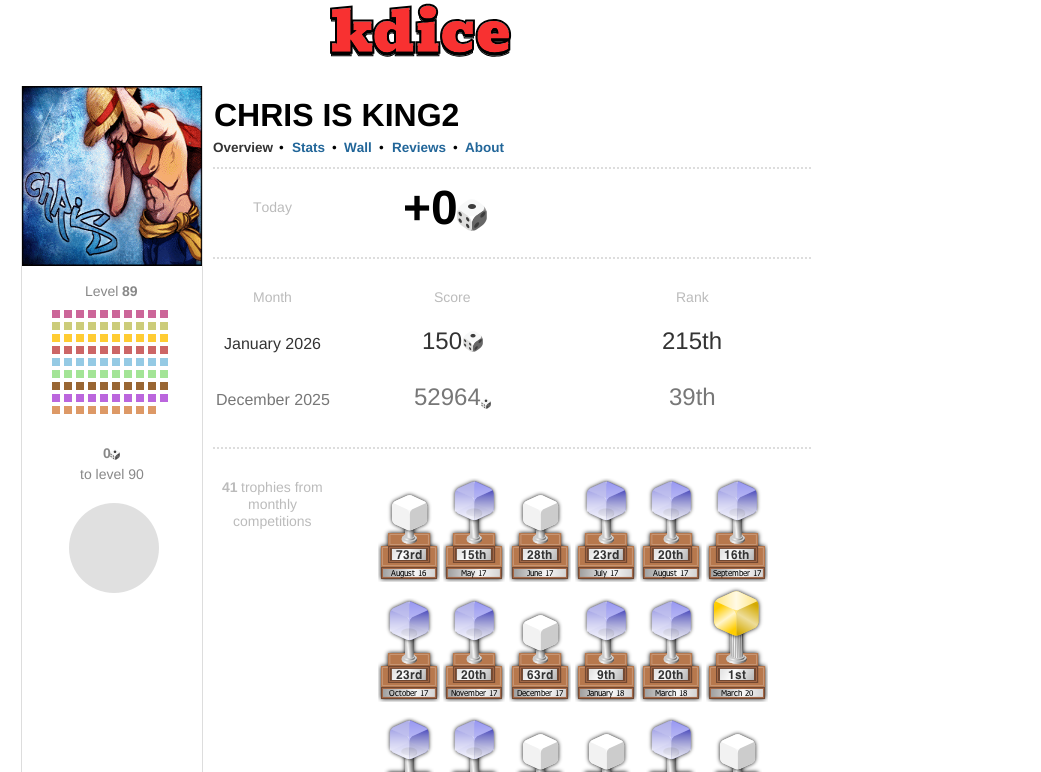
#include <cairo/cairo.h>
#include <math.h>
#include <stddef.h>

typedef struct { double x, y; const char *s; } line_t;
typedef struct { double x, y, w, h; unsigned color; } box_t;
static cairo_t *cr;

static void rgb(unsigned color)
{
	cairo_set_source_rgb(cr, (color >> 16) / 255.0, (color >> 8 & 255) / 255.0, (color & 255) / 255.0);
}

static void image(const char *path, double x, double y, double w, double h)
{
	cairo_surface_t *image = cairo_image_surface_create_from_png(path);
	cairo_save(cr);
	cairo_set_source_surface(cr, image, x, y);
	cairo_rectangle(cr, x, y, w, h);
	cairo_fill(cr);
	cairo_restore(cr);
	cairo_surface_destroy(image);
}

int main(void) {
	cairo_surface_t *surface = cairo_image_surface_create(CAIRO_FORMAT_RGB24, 1041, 772);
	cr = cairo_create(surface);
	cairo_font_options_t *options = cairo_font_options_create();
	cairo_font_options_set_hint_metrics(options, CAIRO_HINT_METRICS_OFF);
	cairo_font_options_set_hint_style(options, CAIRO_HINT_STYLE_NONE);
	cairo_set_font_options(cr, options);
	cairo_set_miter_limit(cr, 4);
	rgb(0xffffff);
	cairo_paint(cr);
	image("img/1.png", 330, 3, 182, 54);
	rgb(0xdddddd);
	cairo_rectangle(cr, 202, 86, 1, 686);
	cairo_fill(cr);
	cairo_rectangle(cr, 21, 86, 1, 686);
	cairo_fill(cr);
	image("img/2.png", 22, 86, 180, 180);
	{
		static const box_t items[] = {
			{52, 310, 8, 8, 0xcc6699},
			{64, 310, 8, 8, 0xcc6699},
			{76, 310, 8, 8, 0xcc6699},
			{88, 310, 8, 8, 0xcc6699},
			{100, 310, 8, 8, 0xcc6699},
			{112, 310, 8, 8, 0xcc6699},
			{124, 310, 8, 8, 0xcc6699},
			{136, 310, 8, 8, 0xcc6699},
			{148, 310, 8, 8, 0xcc6699},
			{160, 310, 8, 8, 0xcc6699},
			{52, 322, 8, 8, 0xcccc7a},
			{64, 322, 8, 8, 0xcccc7a},
			{76, 322, 8, 8, 0xcccc7a},
			{88, 322, 8, 8, 0xcccc7a},
			{100, 322, 8, 8, 0xcccc7a},
			{112, 322, 8, 8, 0xcccc7a},
			{124, 322, 8, 8, 0xcccc7a},
			{136, 322, 8, 8, 0xcccc7a},
			{148, 322, 8, 8, 0xcccc7a},
			{160, 322, 8, 8, 0xcccc7a},
			{52, 334, 8, 8, 0xffcc33},
			{64, 334, 8, 8, 0xffcc33},
			{76, 334, 8, 8, 0xffcc33},
			{88, 334, 8, 8, 0xffcc33},
			{100, 334, 8, 8, 0xffcc33},
			{112, 334, 8, 8, 0xffcc33},
			{124, 334, 8, 8, 0xffcc33},
			{136, 334, 8, 8, 0xffcc33},
			{148, 334, 8, 8, 0xffcc33},
			{160, 334, 8, 8, 0xffcc33},
			{52, 346, 8, 8, 0xcc6666},
			{64, 346, 8, 8, 0xcc6666},
			{76, 346, 8, 8, 0xcc6666},
			{88, 346, 8, 8, 0xcc6666},
			{100, 346, 8, 8, 0xcc6666},
			{112, 346, 8, 8, 0xcc6666},
			{124, 346, 8, 8, 0xcc6666},
			{136, 346, 8, 8, 0xcc6666},
			{148, 346, 8, 8, 0xcc6666},
			{160, 346, 8, 8, 0xcc6666},
			{52, 358, 8, 8, 0x95cae4},
			{64, 358, 8, 8, 0x95cae4},
			{76, 358, 8, 8, 0x95cae4},
			{88, 358, 8, 8, 0x95cae4},
			{100, 358, 8, 8, 0x95cae4},
			{112, 358, 8, 8, 0x95cae4},
			{124, 358, 8, 8, 0x95cae4},
			{136, 358, 8, 8, 0x95cae4},
			{148, 358, 8, 8, 0x95cae4},
			{160, 358, 8, 8, 0x95cae4},
			{52, 370, 8, 8, 0xa3e496},
			{64, 370, 8, 8, 0xa3e496},
			{76, 370, 8, 8, 0xa3e496},
			{88, 370, 8, 8, 0xa3e496},
			{100, 370, 8, 8, 0xa3e496},
			{112, 370, 8, 8, 0xa3e496},
			{124, 370, 8, 8, 0xa3e496},
			{136, 370, 8, 8, 0xa3e496},
			{148, 370, 8, 8, 0xa3e496},
			{160, 370, 8, 8, 0xa3e496},
			{52, 382, 8, 8, 0x996633},
			{64, 382, 8, 8, 0x996633},
			{76, 382, 8, 8, 0x996633},
			{88, 382, 8, 8, 0x996633},
			{100, 382, 8, 8, 0x996633},
			{112, 382, 8, 8, 0x996633},
			{124, 382, 8, 8, 0x996633},
			{136, 382, 8, 8, 0x996633},
			{148, 382, 8, 8, 0x996633},
			{160, 382, 8, 8, 0x996633},
			{52, 394, 8, 8, 0xbb66dd},
			{64, 394, 8, 8, 0xbb66dd},
			{76, 394, 8, 8, 0xbb66dd},
			{88, 394, 8, 8, 0xbb66dd},
			{100, 394, 8, 8, 0xbb66dd},
			{112, 394, 8, 8, 0xbb66dd},
			{124, 394, 8, 8, 0xbb66dd},
			{136, 394, 8, 8, 0xbb66dd},
			{148, 394, 8, 8, 0xbb66dd},
			{160, 394, 8, 8, 0xbb66dd},
			{52, 406, 8, 8, 0xdd9966},
			{64, 406, 8, 8, 0xdd9966},
			{76, 406, 8, 8, 0xdd9966},
			{88, 406, 8, 8, 0xdd9966},
			{100, 406, 8, 8, 0xdd9966},
			{112, 406, 8, 8, 0xdd9966},
			{124, 406, 8, 8, 0xdd9966},
			{136, 406, 8, 8, 0xdd9966},
			{148, 406, 8, 8, 0xdd9966},
		};
		for (size_t i = 0; i < sizeof items / sizeof *items; i++) {
			rgb(items[i].color);
			cairo_rectangle(cr, items[i].x, items[i].y, items[i].w, items[i].h);
			cairo_fill(cr);
		}
	}
	image("img/3.png", 110, 449, 10, 11);
	image("img/4.png", 69, 503, 90, 90);
	cairo_new_path(cr);
	cairo_move_to(cr, 213, 168);
	cairo_line_to(cr, 813, 168);
	rgb(0xdddddd);
	cairo_set_dash(cr, (double[]){2, 2}, 2, 0);
	cairo_stroke(cr);
	image("img/5.png", 457, 199, 30, 32);
	cairo_new_path(cr);
	cairo_move_to(cr, 213, 258);
	cairo_line_to(cr, 813, 258);
	cairo_stroke(cr);
	image("img/6.png", 463, 331, 20, 21);
	image("img/3.png", 481, 398, 10, 11);
	cairo_new_path(cr);
	cairo_move_to(cr, 213, 448);
	cairo_line_to(cr, 813, 448);
	cairo_stroke(cr);
	image("img/7.png", 378, 491, 62, 91);
	image("img/8.png", 443, 478, 62, 104);
	image("img/9.png", 509, 491, 62, 91);
	image("img/10.png", 575, 478, 62, 104);
	image("img/11.png", 640, 478, 62, 104);
	image("img/12.png", 706, 478, 62, 104);
	image("img/13.png", 378, 598, 62, 104);
	image("img/14.png", 443, 598, 62, 104);
	image("img/15.png", 509, 611, 62, 91);
	image("img/16.png", 575, 598, 62, 104);
	image("img/17.png", 640, 598, 62, 104);
	image("img/18.png", 706, 587, 62, 115);
	image("img/19.png", 384, 717, 50, 55);
	image("img/19.png", 449, 717, 50, 55);
	image("img/20.png", 515, 730, 50, 42);
	image("img/20.png", 581, 730, 50, 42);
	image("img/19.png", 646, 717, 50, 55);
	image("img/20.png", 712, 730, 50, 42);
	cairo_select_font_face(cr, "Liberation Sans", CAIRO_FONT_SLANT_NORMAL, CAIRO_FONT_WEIGHT_NORMAL);
	cairo_set_font_size(cr, 14);
	rgb(0x888888);
	cairo_move_to(cr, 85, 296);
	cairo_show_text(cr, "Level");
	cairo_select_font_face(cr, "Liberation Sans", CAIRO_FONT_SLANT_NORMAL, CAIRO_FONT_WEIGHT_BOLD);
	cairo_move_to(cr, 122, 296);
	cairo_show_text(cr, "89");
	cairo_move_to(cr, 103, 458);
	cairo_show_text(cr, "0");
	cairo_select_font_face(cr, "Liberation Sans", CAIRO_FONT_SLANT_NORMAL, CAIRO_FONT_WEIGHT_NORMAL);
	cairo_move_to(cr, 80, 479);
	cairo_show_text(cr, "to level 90");
	cairo_select_font_face(cr, "Liberation Sans", CAIRO_FONT_SLANT_NORMAL, CAIRO_FONT_WEIGHT_BOLD);
	cairo_set_font_size(cr, 32);
	rgb(0x000000);
	cairo_move_to(cr, 214, 126);
	cairo_show_text(cr, "CHRIS IS KING2");
	cairo_set_font_size(cr, 13.5);
	rgb(0x333333);
	cairo_move_to(cr, 213, 152);
	cairo_show_text(cr, "Overview");
	cairo_select_font_face(cr, "Liberation Sans", CAIRO_FONT_SLANT_NORMAL, CAIRO_FONT_WEIGHT_NORMAL);
	rgb(0x000000);
	cairo_move_to(cr, 279, 152);
	cairo_show_text(cr, "•");
	cairo_select_font_face(cr, "Liberation Sans", CAIRO_FONT_SLANT_NORMAL, CAIRO_FONT_WEIGHT_BOLD);
	rgb(0x226699);
	cairo_move_to(cr, 292, 152);
	cairo_show_text(cr, "Stats");
	cairo_select_font_face(cr, "Liberation Sans", CAIRO_FONT_SLANT_NORMAL, CAIRO_FONT_WEIGHT_NORMAL);
	rgb(0x000000);
	cairo_move_to(cr, 332, 152);
	cairo_show_text(cr, "•");
	cairo_select_font_face(cr, "Liberation Sans", CAIRO_FONT_SLANT_NORMAL, CAIRO_FONT_WEIGHT_BOLD);
	rgb(0x226699);
	cairo_move_to(cr, 344, 152);
	cairo_show_text(cr, "Wall");
	cairo_select_font_face(cr, "Liberation Sans", CAIRO_FONT_SLANT_NORMAL, CAIRO_FONT_WEIGHT_NORMAL);
	rgb(0x000000);
	cairo_move_to(cr, 379, 152);
	cairo_show_text(cr, "•");
	cairo_select_font_face(cr, "Liberation Sans", CAIRO_FONT_SLANT_NORMAL, CAIRO_FONT_WEIGHT_BOLD);
	rgb(0x226699);
	cairo_move_to(cr, 392, 152);
	cairo_show_text(cr, "Reviews");
	cairo_select_font_face(cr, "Liberation Sans", CAIRO_FONT_SLANT_NORMAL, CAIRO_FONT_WEIGHT_NORMAL);
	rgb(0x000000);
	cairo_move_to(cr, 453, 152);
	cairo_show_text(cr, "•");
	cairo_select_font_face(cr, "Liberation Sans", CAIRO_FONT_SLANT_NORMAL, CAIRO_FONT_WEIGHT_BOLD);
	rgb(0x226699);
	cairo_move_to(cr, 465, 152);
	cairo_show_text(cr, "About");
	cairo_select_font_face(cr, "Liberation Sans", CAIRO_FONT_SLANT_NORMAL, CAIRO_FONT_WEIGHT_NORMAL);
	cairo_set_font_size(cr, 14);
	rgb(0xbbbbbb);
	cairo_move_to(cr, 253, 212);
	cairo_show_text(cr, "Today");
	cairo_select_font_face(cr, "Liberation Sans", CAIRO_FONT_SLANT_NORMAL, CAIRO_FONT_WEIGHT_BOLD);
	cairo_set_font_size(cr, 48);
	rgb(0x000000);
	cairo_move_to(cr, 403, 224);
	cairo_show_text(cr, "+0");
	cairo_select_font_face(cr, "Liberation Sans", CAIRO_FONT_SLANT_NORMAL, CAIRO_FONT_WEIGHT_NORMAL);
	cairo_set_font_size(cr, 14);
	rgb(0xbbbbbb);
	{
		static const line_t items[] = {
			{253, 302, "Month"},
			{434, 302, "Score"},
			{676, 302, "Rank"},
		};
		for (size_t i = 0; i < sizeof items / sizeof *items; i++) {
			cairo_move_to(cr, items[i].x, items[i].y);
			cairo_show_text(cr, items[i].s);
		}
	}
	cairo_set_font_size(cr, 16);
	rgb(0x333333);
	cairo_move_to(cr, 224, 349);
	cairo_show_text(cr, "January 2026");
	cairo_set_font_size(cr, 24);
	cairo_move_to(cr, 422, 349);
	cairo_show_text(cr, "150");
	cairo_move_to(cr, 662, 349);
	cairo_show_text(cr, "215th");
	cairo_set_font_size(cr, 16);
	rgb(0x777777);
	cairo_move_to(cr, 216, 405);
	cairo_show_text(cr, "December 2025");
	cairo_set_font_size(cr, 24);
	cairo_move_to(cr, 414, 405);
	cairo_show_text(cr, "52964");
	cairo_move_to(cr, 669, 405);
	cairo_show_text(cr, "39th");
	cairo_select_font_face(cr, "Liberation Sans", CAIRO_FONT_SLANT_NORMAL, CAIRO_FONT_WEIGHT_BOLD);
	cairo_set_font_size(cr, 14);
	rgb(0xbbbbbb);
	cairo_move_to(cr, 222, 492);
	cairo_show_text(cr, "41");
	cairo_select_font_face(cr, "Liberation Sans", CAIRO_FONT_SLANT_NORMAL, CAIRO_FONT_WEIGHT_NORMAL);
	{
		static const line_t items[] = {
			{241, 492, "trophies from"},
			{248, 509, "monthly"},
			{233, 526, "competitions"},
		};
		for (size_t i = 0; i < sizeof items / sizeof *items; i++) {
			cairo_move_to(cr, items[i].x, items[i].y);
			cairo_show_text(cr, items[i].s);
		}
	}
	cairo_surface_write_to_png(surface, "page.png");
	cairo_font_options_destroy(options);
	cairo_destroy(cr);
	cairo_surface_destroy(surface);
	return 0;
}
